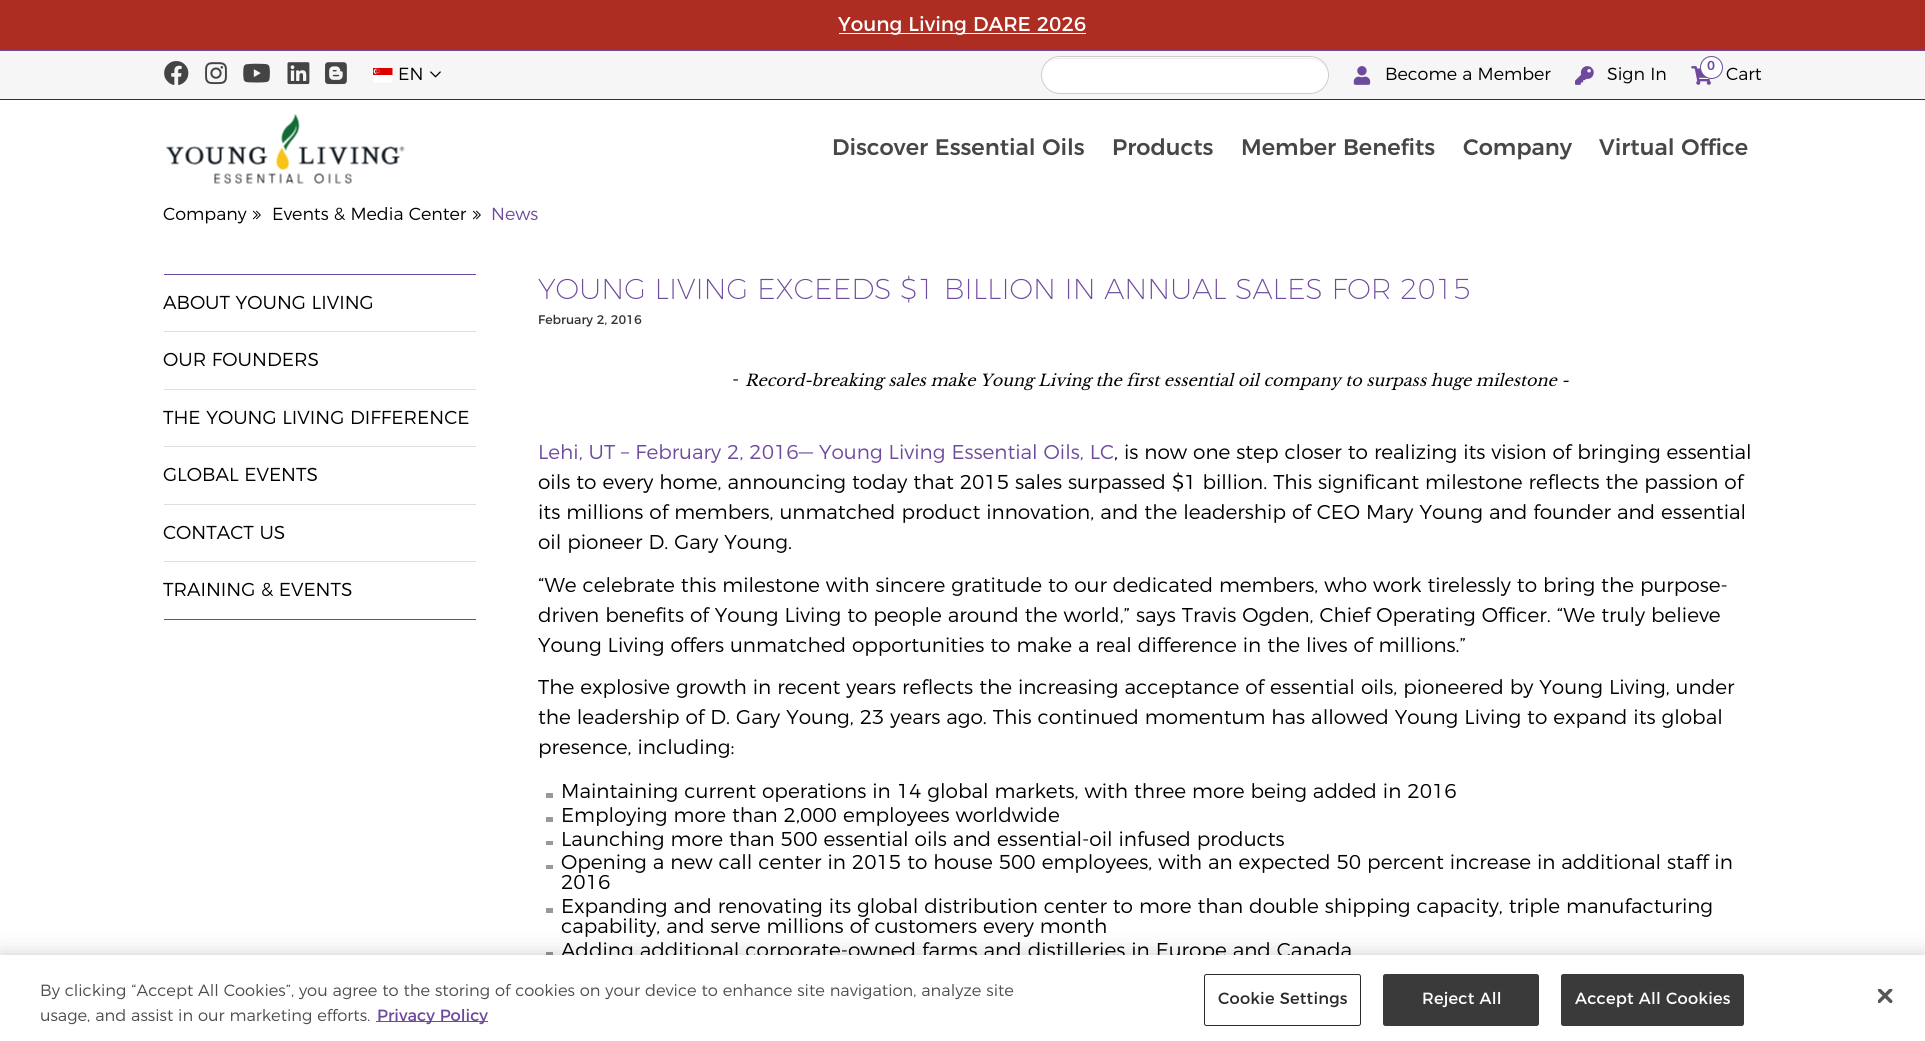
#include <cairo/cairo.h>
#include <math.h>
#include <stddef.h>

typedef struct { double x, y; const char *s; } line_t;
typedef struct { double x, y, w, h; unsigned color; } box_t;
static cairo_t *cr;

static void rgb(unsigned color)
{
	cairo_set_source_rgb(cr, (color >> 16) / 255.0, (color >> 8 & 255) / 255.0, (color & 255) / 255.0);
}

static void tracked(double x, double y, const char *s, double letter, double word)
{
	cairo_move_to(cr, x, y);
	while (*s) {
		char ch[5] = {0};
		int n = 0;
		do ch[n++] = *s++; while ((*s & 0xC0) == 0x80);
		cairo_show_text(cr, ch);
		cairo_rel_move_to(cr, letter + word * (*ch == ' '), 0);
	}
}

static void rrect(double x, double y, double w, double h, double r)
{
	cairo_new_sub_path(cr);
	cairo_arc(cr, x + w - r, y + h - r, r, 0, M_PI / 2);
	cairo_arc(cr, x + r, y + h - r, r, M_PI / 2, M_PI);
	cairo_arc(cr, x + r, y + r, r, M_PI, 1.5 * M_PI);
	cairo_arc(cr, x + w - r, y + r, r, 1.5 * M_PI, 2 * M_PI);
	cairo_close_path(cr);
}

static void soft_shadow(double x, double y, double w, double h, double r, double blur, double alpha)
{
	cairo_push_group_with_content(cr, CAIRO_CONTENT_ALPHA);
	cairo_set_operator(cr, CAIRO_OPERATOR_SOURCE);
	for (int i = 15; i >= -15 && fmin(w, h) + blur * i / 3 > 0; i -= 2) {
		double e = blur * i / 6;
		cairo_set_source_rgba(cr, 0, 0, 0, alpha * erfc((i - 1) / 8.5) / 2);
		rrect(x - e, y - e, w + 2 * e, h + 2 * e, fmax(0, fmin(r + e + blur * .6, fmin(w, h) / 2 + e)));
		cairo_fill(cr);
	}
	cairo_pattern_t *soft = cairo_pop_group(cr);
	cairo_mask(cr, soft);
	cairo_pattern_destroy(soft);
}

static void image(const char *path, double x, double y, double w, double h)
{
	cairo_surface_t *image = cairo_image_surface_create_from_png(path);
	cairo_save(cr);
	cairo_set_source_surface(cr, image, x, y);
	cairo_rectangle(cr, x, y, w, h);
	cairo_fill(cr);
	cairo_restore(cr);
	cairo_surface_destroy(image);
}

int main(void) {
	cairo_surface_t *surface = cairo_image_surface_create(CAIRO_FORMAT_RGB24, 1925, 1041);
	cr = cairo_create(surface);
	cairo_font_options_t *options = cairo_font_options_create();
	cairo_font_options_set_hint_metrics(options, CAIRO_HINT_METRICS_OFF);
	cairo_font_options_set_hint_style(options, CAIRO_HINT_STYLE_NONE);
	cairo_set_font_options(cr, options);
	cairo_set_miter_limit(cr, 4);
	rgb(0xffffff);
	cairo_paint(cr);
	{
		static const box_t items[] = {
			{0, 0, 1925, 50, 0xad2d22},
			{839, 33, 247, 1, 0xffffff},
			{0, 51, 1925, 48, 0xf6f6f6},
			{0, 50, 1925, 1, 0x6e4a9e},
			{0, 99, 1925, 1, 0x333333},
		};
		for (size_t i = 0; i < sizeof items / sizeof *items; i++) {
			rgb(items[i].color);
			cairo_rectangle(cr, items[i].x, items[i].y, items[i].w, items[i].h);
			cairo_fill(cr);
		}
	}
	image("img/1.png", 164, 61, 25, 24);
	image("img/2.png", 205, 62, 22, 23);
	image("img/3.png", 243, 63, 27, 20);
	image("img/4.png", 287, 62, 23, 23);
	image("img/5.png", 325, 62, 22, 23);
	image("img/6.png", 373, 68, 20, 15);
	image("img/7.png", 430, 71, 11, 7);
	rgb(0xffffff);
	rrect(1041, 56, 288, 38, 19);
	cairo_fill(cr);
	rgb(0xebebeb);
	cairo_new_path(cr);
	cairo_move_to(cr, 1060, 59);
	cairo_line_to(cr, 1310, 59);
	cairo_curve_to(cr, 1320, 59, 1328, 67, 1328, 76);
	cairo_curve_to(cr, 1328, 66, 1320, 58, 1310, 58);
	cairo_line_to(cr, 1060, 58);
	cairo_curve_to(cr, 1055, 58, 1050, 60, 1047, 64);
	cairo_curve_to(cr, 1050, 61, 1055, 59, 1060, 59);
	cairo_close_path(cr);
	cairo_fill(cr);
	rrect(1041.5, 56.5, 287, 37, 18.5);
	rgb(0xcccccc);
	cairo_set_line_width(cr, 1);
	cairo_stroke(cr);
	image("img/8.png", 1353, 66, 18, 19);
	image("img/9.png", 1575, 66, 19, 19);
	image("img/10.png", 1691, 66, 20, 19);
	rgb(0xffffff);
	cairo_arc(cr, 1711.5, 67.5, 11, 0, 2 * M_PI);
	cairo_fill_preserve(cr);
	rgb(0x6e4a9e);
	cairo_stroke(cr);
	image("img/11.png", 166, 114, 239, 70);
	image("img/12.png", 252, 210, 9, 10);
	image("img/12.png", 472, 210, 9, 10);
	{
		static const box_t items[] = {
			{164, 274, 312, 1, 0x6e4a9e},
			{164, 619, 312, 1, 0x6e4a9e},
			{164, 331, 312, 1, 0xe0e0e0},
			{164, 389, 312, 1, 0xe0e0e0},
			{164, 446, 312, 1, 0xe0e0e0},
			{164, 504, 312, 1, 0xe0e0e0},
			{164, 561, 312, 1, 0xe0e0e0},
			{546, 793, 7, 5, 0x999999},
			{546, 817, 7, 5, 0x999999},
			{546, 841, 7, 4, 0x999999},
			{546, 865, 7, 4, 0x999999},
			{546, 908, 7, 5, 0x999999},
			{546, 952, 7, 3, 0x999999},
		};
		for (size_t i = 0; i < sizeof items / sizeof *items; i++) {
			rgb(items[i].color);
			cairo_rectangle(cr, items[i].x, items[i].y, items[i].w, items[i].h);
			cairo_fill(cr);
		}
	}
	rgb(0x000000);
	soft_shadow(0, 955, 1925, 86, 0, 11, 0.2);
	cairo_select_font_face(cr, "Montserrat", CAIRO_FONT_SLANT_NORMAL, CAIRO_FONT_WEIGHT_NORMAL);
	cairo_set_font_size(cr, 20);
	rgb(0xffffff);
	cairo_move_to(cr, 838, 31);
	cairo_show_text(cr, "Young Living DARE 2026");
	cairo_select_font_face(cr, "Montserrat Light", CAIRO_FONT_SLANT_NORMAL, CAIRO_FONT_WEIGHT_NORMAL);
	cairo_set_font_size(cr, 17.5);
	rgb(0x000000);
	{
		static const line_t items[] = {
			{398, 80, "EN"},
			{1385, 80, "Become a Member"},
			{1607, 80, "Sign In"},
		};
		for (size_t i = 0; i < sizeof items / sizeof *items; i++) {
			cairo_move_to(cr, items[i].x, items[i].y);
			cairo_show_text(cr, items[i].s);
		}
	}
	cairo_select_font_face(cr, "Montserrat Medium", CAIRO_FONT_SLANT_NORMAL, CAIRO_FONT_WEIGHT_NORMAL);
	cairo_set_font_size(cr, 13);
	rgb(0x6e4a9e);
	cairo_move_to(cr, 1707, 70);
	cairo_show_text(cr, "0");
	cairo_select_font_face(cr, "Montserrat Light", CAIRO_FONT_SLANT_NORMAL, CAIRO_FONT_WEIGHT_NORMAL);
	cairo_set_font_size(cr, 17.5);
	rgb(0x000000);
	cairo_move_to(cr, 1726, 80);
	cairo_show_text(cr, "Cart");
	cairo_select_font_face(cr, "Montserrat Medium", CAIRO_FONT_SLANT_NORMAL, CAIRO_FONT_WEIGHT_NORMAL);
	cairo_set_font_size(cr, 22.5);
	rgb(0x474747);
	{
		static const line_t items[] = {
			{832, 155, "Discover Essential Oils"},
			{1112, 155, "Products"},
			{1241, 155, "Member Benefits"},
			{1463, 155, "Company"},
			{1599, 155, "Virtual Office"},
		};
		for (size_t i = 0; i < sizeof items / sizeof *items; i++) {
			cairo_move_to(cr, items[i].x, items[i].y);
			cairo_show_text(cr, items[i].s);
		}
	}
	cairo_select_font_face(cr, "Montserrat Light", CAIRO_FONT_SLANT_NORMAL, CAIRO_FONT_WEIGHT_NORMAL);
	cairo_set_font_size(cr, 17.5);
	rgb(0x000000);
	cairo_move_to(cr, 163, 220);
	cairo_show_text(cr, "Company");
	cairo_move_to(cr, 272, 220);
	cairo_show_text(cr, "Events & Media Center");
	rgb(0x6e4a9e);
	cairo_move_to(cr, 491, 220);
	cairo_show_text(cr, "News");
	cairo_set_font_size(cr, 18.75);
	rgb(0x000000);
	{
		static const line_t items[] = {
			{163, 309, "ABOUT YOUNG LIVING"},
			{163, 366, "OUR FOUNDERS"},
			{163, 424, "THE YOUNG LIVING DIFFERENCE"},
			{163, 481, "GLOBAL EVENTS"},
			{163, 539, "CONTACT US"},
			{163, 596, "TRAINING & EVENTS"},
		};
		for (size_t i = 0; i < sizeof items / sizeof *items; i++) {
			cairo_move_to(cr, items[i].x, items[i].y);
			cairo_show_text(cr, items[i].s);
		}
	}
	cairo_select_font_face(cr, "Montserrat ExtraLight", CAIRO_FONT_SLANT_NORMAL, CAIRO_FONT_WEIGHT_NORMAL);
	cairo_set_font_size(cr, 28.75);
	rgb(0x6e4a9e);
	cairo_move_to(cr, 538, 299);
	cairo_show_text(cr, "YOUNG LIVING EXCEEDS $1 BILLION IN ANNUAL SALES FOR 2015");
	cairo_select_font_face(cr, "Montserrat", CAIRO_FONT_SLANT_NORMAL, CAIRO_FONT_WEIGHT_NORMAL);
	cairo_set_font_size(cr, 12.5);
	rgb(0x333333);
	cairo_move_to(cr, 538, 324);
	cairo_show_text(cr, "February 2, 2016");
	cairo_select_font_face(cr, "Montserrat Light", CAIRO_FONT_SLANT_NORMAL, CAIRO_FONT_WEIGHT_NORMAL);
	cairo_set_font_size(cr, 20);
	rgb(0x000000);
	cairo_move_to(cr, 732, 386);
	cairo_show_text(cr, "-");
	cairo_select_font_face(cr, "Libre Baskerville", CAIRO_FONT_SLANT_ITALIC, CAIRO_FONT_WEIGHT_NORMAL);
	cairo_move_to(cr, 745, 386);
	cairo_show_text(cr, "Record-breaking sales make Young Living the first essential oil company to surpass huge milestone -");
	cairo_select_font_face(cr, "Montserrat Light", CAIRO_FONT_SLANT_NORMAL, CAIRO_FONT_WEIGHT_NORMAL);
	rgb(0x6e4a9e);
	cairo_move_to(cr, 538, 459);
	cairo_show_text(cr, "Lehi, UT – February 2, 2016— Young Living Essential Oils, LC");
	rgb(0x000000);
	{
		static const line_t items[] = {
			{1114, 459, ", is now one step closer to realizing its vision of bringing essential"},
			{538, 489, "oils to every home, announcing today that 2015 sales surpassed $1 billion. This significant milestone reflects the passion of"},
			{538, 519, "its millions of members, unmatched product innovation, and the leadership of CEO Mary Young and founder and essential"},
			{538, 549, "oil pioneer D. Gary Young."},
			{538, 592, "“We celebrate this milestone with sincere gratitude to our dedicated members, who work tirelessly to bring the purpose-"},
			{538, 622, "driven benefits of Young Living to people around the world,” says Travis Ogden, Chief Operating Officer. “We truly believe"},
			{538, 652, "Young Living offers unmatched opportunities to make a real difference in the lives of millions.”"},
			{538, 694, "The explosive growth in recent years reflects the increasing acceptance of essential oils, pioneered by Young Living, under"},
			{538, 724, "the leadership of D. Gary Young, 23 years ago. This continued momentum has allowed Young Living to expand its global"},
			{538, 754, "presence, including:"},
			{561, 798, "Maintaining current operations in 14 global markets, with three more being added in 2016"},
			{561, 822, "Employing more than 2,000 employees worldwide"},
			{561, 846, "Launching more than 500 essential oils and essential-oil infused products"},
			{561, 869, "Opening a new call center in 2015 to house 500 employees, with an expected 50 percent increase in additional staff in"},
			{561, 889, "2016"},
			{561, 913, "Expanding and renovating its global distribution center to more than double shipping capacity, triple manufacturing"},
			{561, 933, "capability, and serve millions of customers every month"},
			{561, 957, "Adding additional corporate-owned farms and distilleries in Europe and Canada"},
		};
		for (size_t i = 0; i < sizeof items / sizeof *items; i++) {
			cairo_move_to(cr, items[i].x, items[i].y);
			cairo_show_text(cr, items[i].s);
		}
	}
	rgb(0xffffff);
	cairo_rectangle(cr, 0, 955, 1925, 86);
	cairo_fill(cr);
	cairo_set_font_size(cr, 16.25);
	rgb(0x4d4d4d);
	cairo_move_to(cr, 40, 996);
	cairo_show_text(cr, "By clicking “Accept All Cookies”, you agree to the storing of cookies on your device to enhance site navigation, analyze site");
	cairo_move_to(cr, 40, 1021);
	cairo_show_text(cr, "usage, and assist in our marketing efforts.");
	rgb(0x6e4a9e);
	cairo_rectangle(cr, 376, 1021, 112, 1);
	cairo_fill(cr);
	cairo_select_font_face(cr, "Montserrat", CAIRO_FONT_SLANT_NORMAL, CAIRO_FONT_WEIGHT_NORMAL);
	cairo_move_to(cr, 377, 1021);
	cairo_show_text(cr, "Privacy Policy");
	rrect(1204.5, 974.5, 156, 51, 2);
	rgb(0x292929);
	cairo_stroke(cr);
	tracked(1218, 1004, "Cookie Settings", 0.2, 0);
	rgb(0x3a3a3a);
	rrect(1383.5, 974.5, 155, 51, 2);
	cairo_fill_preserve(cr);
	cairo_stroke(cr);
	rgb(0xffffff);
	tracked(1422, 1004, "Reject All", 0.2, 0);
	rgb(0x3a3a3a);
	rrect(1561.5, 974.5, 182, 51, 2);
	cairo_fill_preserve(cr);
	cairo_stroke(cr);
	rgb(0xffffff);
	tracked(1575, 1004, "Accept All Cookies", 0.2, 0);
	image("img/13.png", 1878, 989, 15, 15);
	cairo_surface_write_to_png(surface, "page.png");
	cairo_font_options_destroy(options);
	cairo_destroy(cr);
	cairo_surface_destroy(surface);
	return 0;
}
